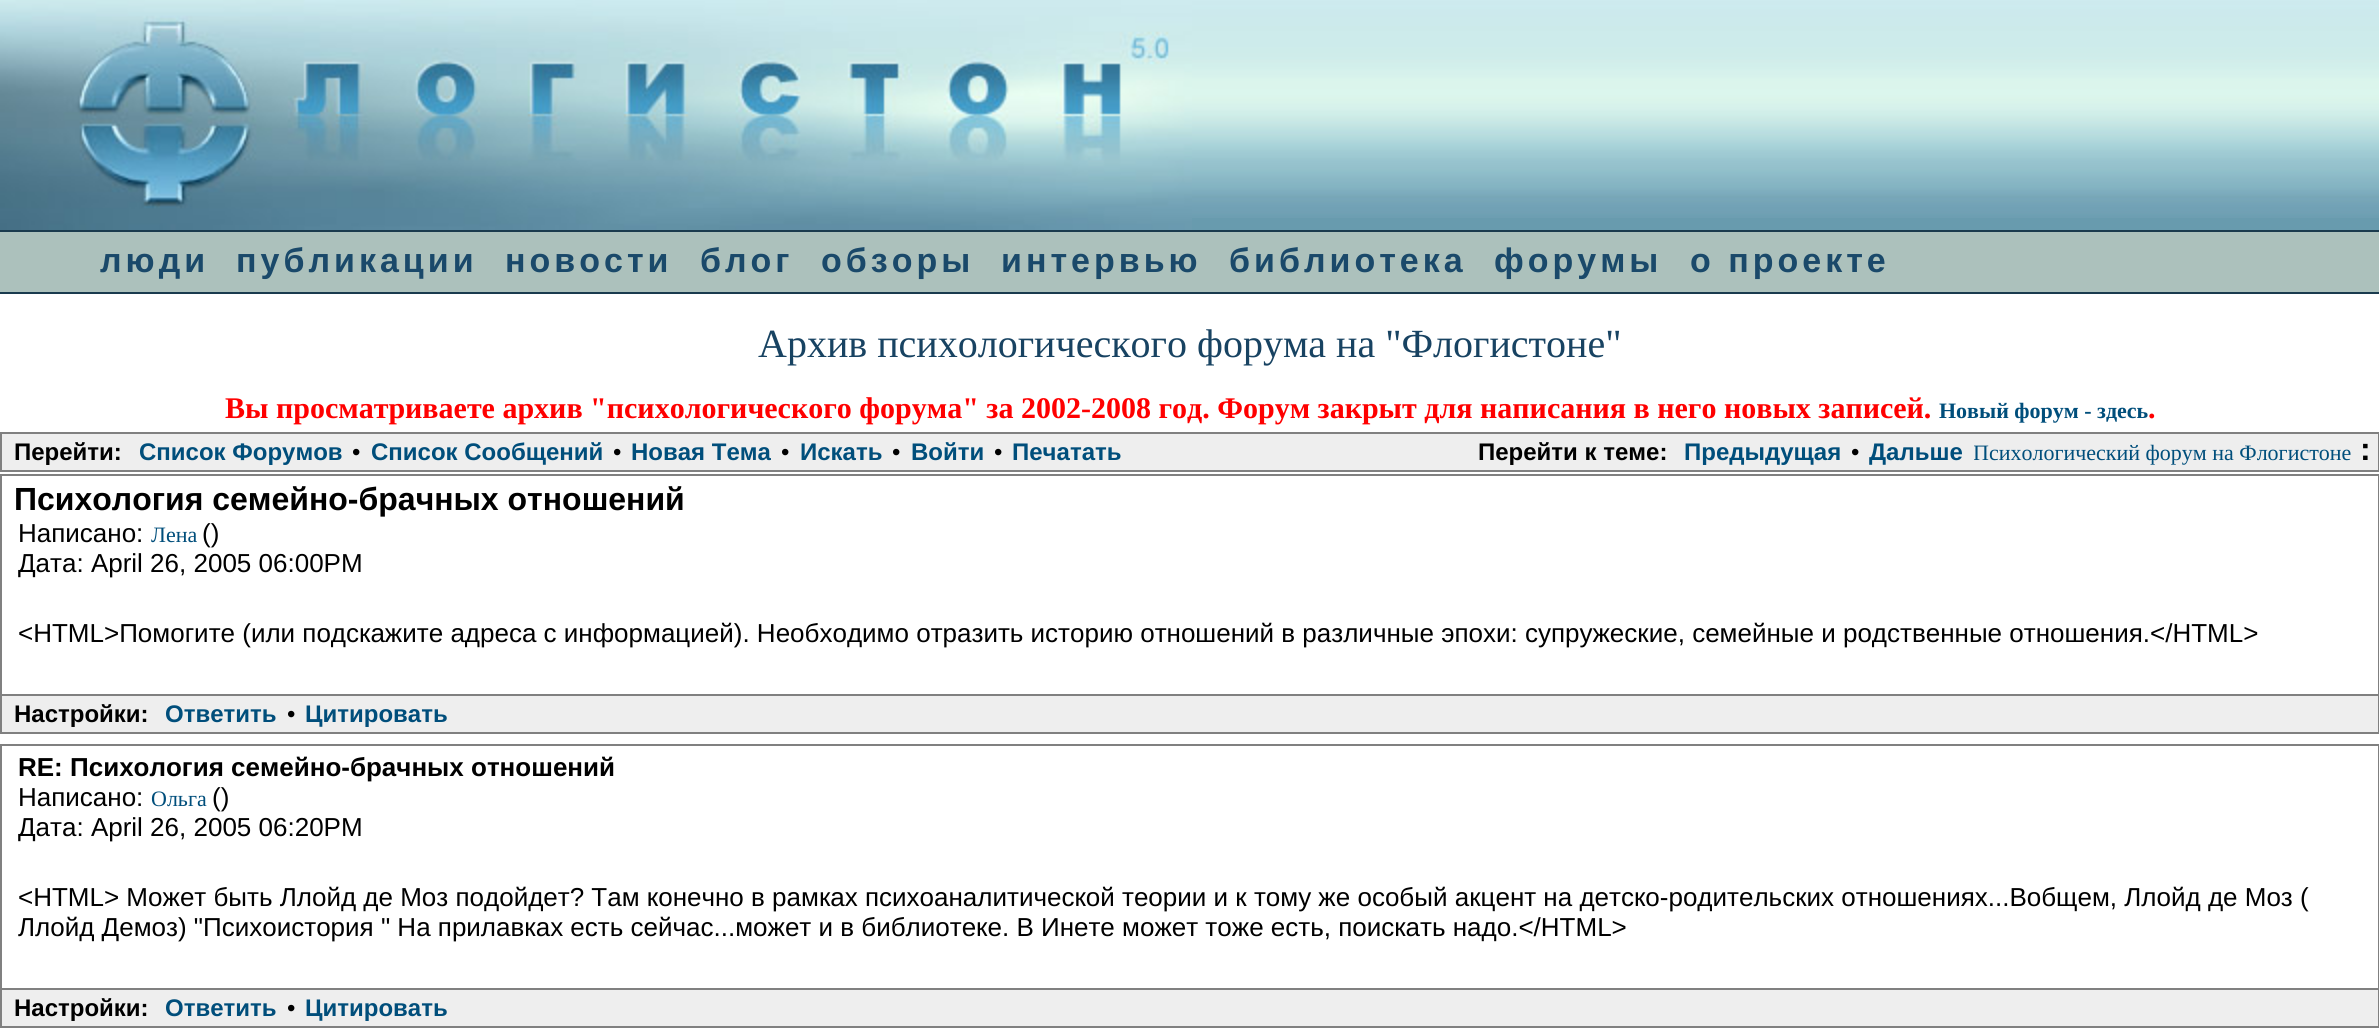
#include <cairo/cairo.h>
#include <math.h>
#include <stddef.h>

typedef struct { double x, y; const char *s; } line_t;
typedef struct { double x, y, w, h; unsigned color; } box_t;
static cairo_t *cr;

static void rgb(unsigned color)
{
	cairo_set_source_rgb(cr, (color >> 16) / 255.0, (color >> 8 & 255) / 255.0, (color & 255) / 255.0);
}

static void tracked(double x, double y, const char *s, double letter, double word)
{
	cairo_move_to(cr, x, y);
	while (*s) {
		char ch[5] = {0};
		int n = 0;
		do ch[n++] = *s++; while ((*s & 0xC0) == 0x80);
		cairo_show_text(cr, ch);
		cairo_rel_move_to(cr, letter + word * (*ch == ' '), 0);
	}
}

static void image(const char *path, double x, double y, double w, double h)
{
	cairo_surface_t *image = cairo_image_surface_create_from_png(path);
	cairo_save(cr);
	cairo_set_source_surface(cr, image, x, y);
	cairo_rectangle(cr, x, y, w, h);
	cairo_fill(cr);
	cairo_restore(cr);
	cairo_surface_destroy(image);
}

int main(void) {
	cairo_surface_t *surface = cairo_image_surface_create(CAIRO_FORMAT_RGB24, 2379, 1034);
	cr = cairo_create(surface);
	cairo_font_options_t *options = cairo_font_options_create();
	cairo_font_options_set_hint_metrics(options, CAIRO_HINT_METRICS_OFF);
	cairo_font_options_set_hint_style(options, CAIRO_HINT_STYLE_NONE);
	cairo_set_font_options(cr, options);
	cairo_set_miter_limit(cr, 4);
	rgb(0xffffff);
	cairo_paint(cr);
	rgb(0x689bae);
	cairo_rectangle(cr, 1192, 218, 1187, 12);
	cairo_fill(cr);
	image("img/1.png", 0, 0, 1192, 230);
	image("img/2.png", 1192, 0, 1187, 218);
	{
		static const box_t items[] = {
			{0, 232, 2379, 60, 0xacc1bc},
			{0, 230, 2379, 2, 0x1a3b4e},
			{0, 292, 2379, 2, 0x1a3b4e},
		};
		for (size_t i = 0; i < sizeof items / sizeof *items; i++) {
			rgb(items[i].color);
			cairo_rectangle(cr, items[i].x, items[i].y, items[i].w, items[i].h);
			cairo_fill(cr);
		}
	}
	rgb(0xeeeeee);
	cairo_rectangle(cr, 1, 433, 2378, 38);
	cairo_fill_preserve(cr);
	rgb(0x808080);
	cairo_stroke(cr);
	cairo_rectangle(cr, 1, 475, 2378, 220);
	cairo_stroke(cr);
	{
		static const box_t items[] = {
			{2, 696, 2376, 36, 0xeeeeee},
			{2378, 696, 1, 38, 0x808080},
			{0, 732, 2379, 2, 0x808080},
			{0, 696, 2, 38, 0x808080},
		};
		for (size_t i = 0; i < sizeof items / sizeof *items; i++) {
			rgb(items[i].color);
			cairo_rectangle(cr, items[i].x, items[i].y, items[i].w, items[i].h);
			cairo_fill(cr);
		}
	}
	cairo_rectangle(cr, 1, 745, 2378, 244);
	cairo_stroke(cr);
	{
		static const box_t items[] = {
			{2, 990, 2376, 36, 0xeeeeee},
			{2378, 990, 1, 38, 0x808080},
			{0, 1026, 2379, 2, 0x808080},
			{0, 990, 2, 38, 0x808080},
		};
		for (size_t i = 0; i < sizeof items / sizeof *items; i++) {
			rgb(items[i].color);
			cairo_rectangle(cr, items[i].x, items[i].y, items[i].w, items[i].h);
			cairo_fill(cr);
		}
	}
	cairo_select_font_face(cr, "Liberation Sans", CAIRO_FONT_SLANT_NORMAL, CAIRO_FONT_WEIGHT_BOLD);
	cairo_set_font_size(cr, 34);
	rgb(0x1a496a);
	{
		static const line_t items[] = {
			{100, 272, "люди"},
			{236, 272, "публикации"},
			{505, 272, "новости"},
			{700, 272, "блог"},
			{821, 272, "обзоры"},
			{1001, 272, "интервью"},
			{1229, 272, "библиотека"},
			{1494, 272, "форумы"},
			{1690, 272, "о проекте"},
		};
		for (size_t i = 0; i < sizeof items / sizeof *items; i++) {
			tracked(items[i].x, items[i].y, items[i].s, 4, 0);
		}
	}
	cairo_select_font_face(cr, "Liberation Serif", CAIRO_FONT_SLANT_NORMAL, CAIRO_FONT_WEIGHT_NORMAL);
	cairo_set_font_size(cr, 40);
	rgb(0x184362);
	cairo_move_to(cr, 758, 357);
	cairo_show_text(cr, "Архив психологического форума на \"Флогистоне\"");
	cairo_select_font_face(cr, "Liberation Serif", CAIRO_FONT_SLANT_NORMAL, CAIRO_FONT_WEIGHT_BOLD);
	cairo_set_font_size(cr, 30);
	rgb(0xff0000);
	cairo_move_to(cr, 225, 418);
	cairo_show_text(cr, "Вы просматриваете архив \"психологического форума\" за 2002-2008 год. Форум закрыт для написания в него новых записей.");
	cairo_set_font_size(cr, 22);
	rgb(0x004e7b);
	cairo_move_to(cr, 1939, 418);
	cairo_show_text(cr, "Новый форум - здесь");
	cairo_set_font_size(cr, 30);
	rgb(0xff0000);
	cairo_move_to(cr, 2148, 418);
	cairo_show_text(cr, ".");
	cairo_select_font_face(cr, "Liberation Sans", CAIRO_FONT_SLANT_NORMAL, CAIRO_FONT_WEIGHT_BOLD);
	cairo_set_font_size(cr, 24);
	rgb(0x000000);
	cairo_move_to(cr, 14, 460);
	cairo_show_text(cr, "Перейти:");
	rgb(0x004e7b);
	cairo_move_to(cr, 139, 460);
	cairo_show_text(cr, "Список Форумов");
	cairo_select_font_face(cr, "Liberation Sans", CAIRO_FONT_SLANT_NORMAL, CAIRO_FONT_WEIGHT_NORMAL);
	rgb(0x000000);
	cairo_move_to(cr, 352, 460);
	cairo_show_text(cr, "•");
	cairo_select_font_face(cr, "Liberation Sans", CAIRO_FONT_SLANT_NORMAL, CAIRO_FONT_WEIGHT_BOLD);
	rgb(0x004e7b);
	cairo_move_to(cr, 371, 460);
	cairo_show_text(cr, "Список Сообщений");
	cairo_select_font_face(cr, "Liberation Sans", CAIRO_FONT_SLANT_NORMAL, CAIRO_FONT_WEIGHT_NORMAL);
	rgb(0x000000);
	cairo_move_to(cr, 613, 460);
	cairo_show_text(cr, "•");
	cairo_select_font_face(cr, "Liberation Sans", CAIRO_FONT_SLANT_NORMAL, CAIRO_FONT_WEIGHT_BOLD);
	rgb(0x004e7b);
	cairo_move_to(cr, 631, 460);
	cairo_show_text(cr, "Новая Тема");
	cairo_select_font_face(cr, "Liberation Sans", CAIRO_FONT_SLANT_NORMAL, CAIRO_FONT_WEIGHT_NORMAL);
	rgb(0x000000);
	cairo_move_to(cr, 781, 460);
	cairo_show_text(cr, "•");
	cairo_select_font_face(cr, "Liberation Sans", CAIRO_FONT_SLANT_NORMAL, CAIRO_FONT_WEIGHT_BOLD);
	rgb(0x004e7b);
	cairo_move_to(cr, 800, 460);
	cairo_show_text(cr, "Искать");
	cairo_select_font_face(cr, "Liberation Sans", CAIRO_FONT_SLANT_NORMAL, CAIRO_FONT_WEIGHT_NORMAL);
	rgb(0x000000);
	cairo_move_to(cr, 892, 460);
	cairo_show_text(cr, "•");
	cairo_select_font_face(cr, "Liberation Sans", CAIRO_FONT_SLANT_NORMAL, CAIRO_FONT_WEIGHT_BOLD);
	rgb(0x004e7b);
	cairo_move_to(cr, 911, 460);
	cairo_show_text(cr, "Войти");
	cairo_select_font_face(cr, "Liberation Sans", CAIRO_FONT_SLANT_NORMAL, CAIRO_FONT_WEIGHT_NORMAL);
	rgb(0x000000);
	cairo_move_to(cr, 994, 460);
	cairo_show_text(cr, "•");
	cairo_select_font_face(cr, "Liberation Sans", CAIRO_FONT_SLANT_NORMAL, CAIRO_FONT_WEIGHT_BOLD);
	rgb(0x004e7b);
	cairo_move_to(cr, 1012, 460);
	cairo_show_text(cr, "Печатать");
	rgb(0x000000);
	cairo_move_to(cr, 1478, 460);
	cairo_show_text(cr, "Перейти к теме:");
	rgb(0x004e7b);
	cairo_move_to(cr, 1684, 460);
	cairo_show_text(cr, "Предыдущая");
	cairo_select_font_face(cr, "Liberation Sans", CAIRO_FONT_SLANT_NORMAL, CAIRO_FONT_WEIGHT_NORMAL);
	rgb(0x000000);
	cairo_move_to(cr, 1851, 460);
	cairo_show_text(cr, "•");
	cairo_select_font_face(cr, "Liberation Serif", CAIRO_FONT_SLANT_NORMAL, CAIRO_FONT_WEIGHT_NORMAL);
	cairo_set_font_size(cr, 22);
	rgb(0x004e7b);
	cairo_move_to(cr, 1973, 460);
	cairo_show_text(cr, "Психологический форум на Флогистоне");
	cairo_rectangle(cr, 1861, 437, 112, 30);
	rgb(0xeeeeee);
	cairo_stroke(cr);
	cairo_select_font_face(cr, "Liberation Sans", CAIRO_FONT_SLANT_NORMAL, CAIRO_FONT_WEIGHT_BOLD);
	cairo_set_font_size(cr, 24);
	rgb(0x004e7b);
	cairo_move_to(cr, 1869, 460);
	cairo_show_text(cr, "Дальше");
	cairo_set_font_size(cr, 32);
	rgb(0x000000);
	cairo_move_to(cr, 2360, 460);
	cairo_show_text(cr, ":");
	cairo_move_to(cr, 14, 510);
	cairo_show_text(cr, "Психология семейно-брачных отношений");
	cairo_select_font_face(cr, "Liberation Sans", CAIRO_FONT_SLANT_NORMAL, CAIRO_FONT_WEIGHT_NORMAL);
	cairo_set_font_size(cr, 26);
	cairo_move_to(cr, 18, 542);
	cairo_show_text(cr, "Написано:");
	cairo_select_font_face(cr, "Liberation Serif", CAIRO_FONT_SLANT_NORMAL, CAIRO_FONT_WEIGHT_NORMAL);
	cairo_set_font_size(cr, 22);
	rgb(0x004e7b);
	cairo_move_to(cr, 151, 542);
	cairo_show_text(cr, "Лена");
	cairo_select_font_face(cr, "Liberation Sans", CAIRO_FONT_SLANT_NORMAL, CAIRO_FONT_WEIGHT_NORMAL);
	cairo_set_font_size(cr, 26);
	rgb(0x000000);
	{
		static const line_t items[] = {
			{202, 542, "()"},
			{18, 572, "Дата: April 26, 2005 06:00PM"},
			{18, 642, "<HTML>Помогите (или подскажите адреса с информацией). Необходимо отразить историю отношений в различные эпохи: супружеские, семейные и родственные отношения.</HTML>"},
		};
		for (size_t i = 0; i < sizeof items / sizeof *items; i++) {
			cairo_move_to(cr, items[i].x, items[i].y);
			cairo_show_text(cr, items[i].s);
		}
	}
	cairo_select_font_face(cr, "Liberation Sans", CAIRO_FONT_SLANT_NORMAL, CAIRO_FONT_WEIGHT_BOLD);
	cairo_set_font_size(cr, 24);
	cairo_move_to(cr, 14, 722);
	cairo_show_text(cr, "Настройки:");
	rgb(0x004e7b);
	cairo_move_to(cr, 165, 722);
	cairo_show_text(cr, "Ответить");
	cairo_select_font_face(cr, "Liberation Sans", CAIRO_FONT_SLANT_NORMAL, CAIRO_FONT_WEIGHT_NORMAL);
	rgb(0x000000);
	cairo_move_to(cr, 287, 722);
	cairo_show_text(cr, "•");
	cairo_select_font_face(cr, "Liberation Sans", CAIRO_FONT_SLANT_NORMAL, CAIRO_FONT_WEIGHT_BOLD);
	rgb(0x004e7b);
	cairo_move_to(cr, 305, 722);
	cairo_show_text(cr, "Цитировать");
	cairo_set_font_size(cr, 26);
	rgb(0x000000);
	cairo_move_to(cr, 18, 776);
	cairo_show_text(cr, "RE: Психология семейно-брачных отношений");
	cairo_select_font_face(cr, "Liberation Sans", CAIRO_FONT_SLANT_NORMAL, CAIRO_FONT_WEIGHT_NORMAL);
	cairo_move_to(cr, 18, 806);
	cairo_show_text(cr, "Написано:");
	cairo_select_font_face(cr, "Liberation Serif", CAIRO_FONT_SLANT_NORMAL, CAIRO_FONT_WEIGHT_NORMAL);
	cairo_set_font_size(cr, 22);
	rgb(0x004e7b);
	cairo_move_to(cr, 151, 806);
	cairo_show_text(cr, "Ольга");
	cairo_select_font_face(cr, "Liberation Sans", CAIRO_FONT_SLANT_NORMAL, CAIRO_FONT_WEIGHT_NORMAL);
	cairo_set_font_size(cr, 26);
	rgb(0x000000);
	{
		static const line_t items[] = {
			{212, 806, "()"},
			{18, 836, "Дата: April 26, 2005 06:20PM"},
			{18, 906, "<HTML> Может быть Ллойд де Моз подойдет? Там конечно в рамках психоаналитической теории и к тому же особый акцент на детско-родительских отношениях...Вобщем, Ллойд де Моз ("},
			{18, 936, "Ллойд Демоз) \"Психоистория \" На прилавках есть сейчас...может и в библиотеке. В Инете может тоже есть, поискать надо.</HTML>"},
		};
		for (size_t i = 0; i < sizeof items / sizeof *items; i++) {
			cairo_move_to(cr, items[i].x, items[i].y);
			cairo_show_text(cr, items[i].s);
		}
	}
	cairo_select_font_face(cr, "Liberation Sans", CAIRO_FONT_SLANT_NORMAL, CAIRO_FONT_WEIGHT_BOLD);
	cairo_set_font_size(cr, 24);
	cairo_move_to(cr, 14, 1016);
	cairo_show_text(cr, "Настройки:");
	rgb(0x004e7b);
	cairo_move_to(cr, 165, 1016);
	cairo_show_text(cr, "Ответить");
	cairo_select_font_face(cr, "Liberation Sans", CAIRO_FONT_SLANT_NORMAL, CAIRO_FONT_WEIGHT_NORMAL);
	rgb(0x000000);
	cairo_move_to(cr, 287, 1016);
	cairo_show_text(cr, "•");
	cairo_select_font_face(cr, "Liberation Sans", CAIRO_FONT_SLANT_NORMAL, CAIRO_FONT_WEIGHT_BOLD);
	rgb(0x004e7b);
	cairo_move_to(cr, 305, 1016);
	cairo_show_text(cr, "Цитировать");
	cairo_surface_write_to_png(surface, "page.png");
	cairo_font_options_destroy(options);
	cairo_destroy(cr);
	cairo_surface_destroy(surface);
	return 0;
}
